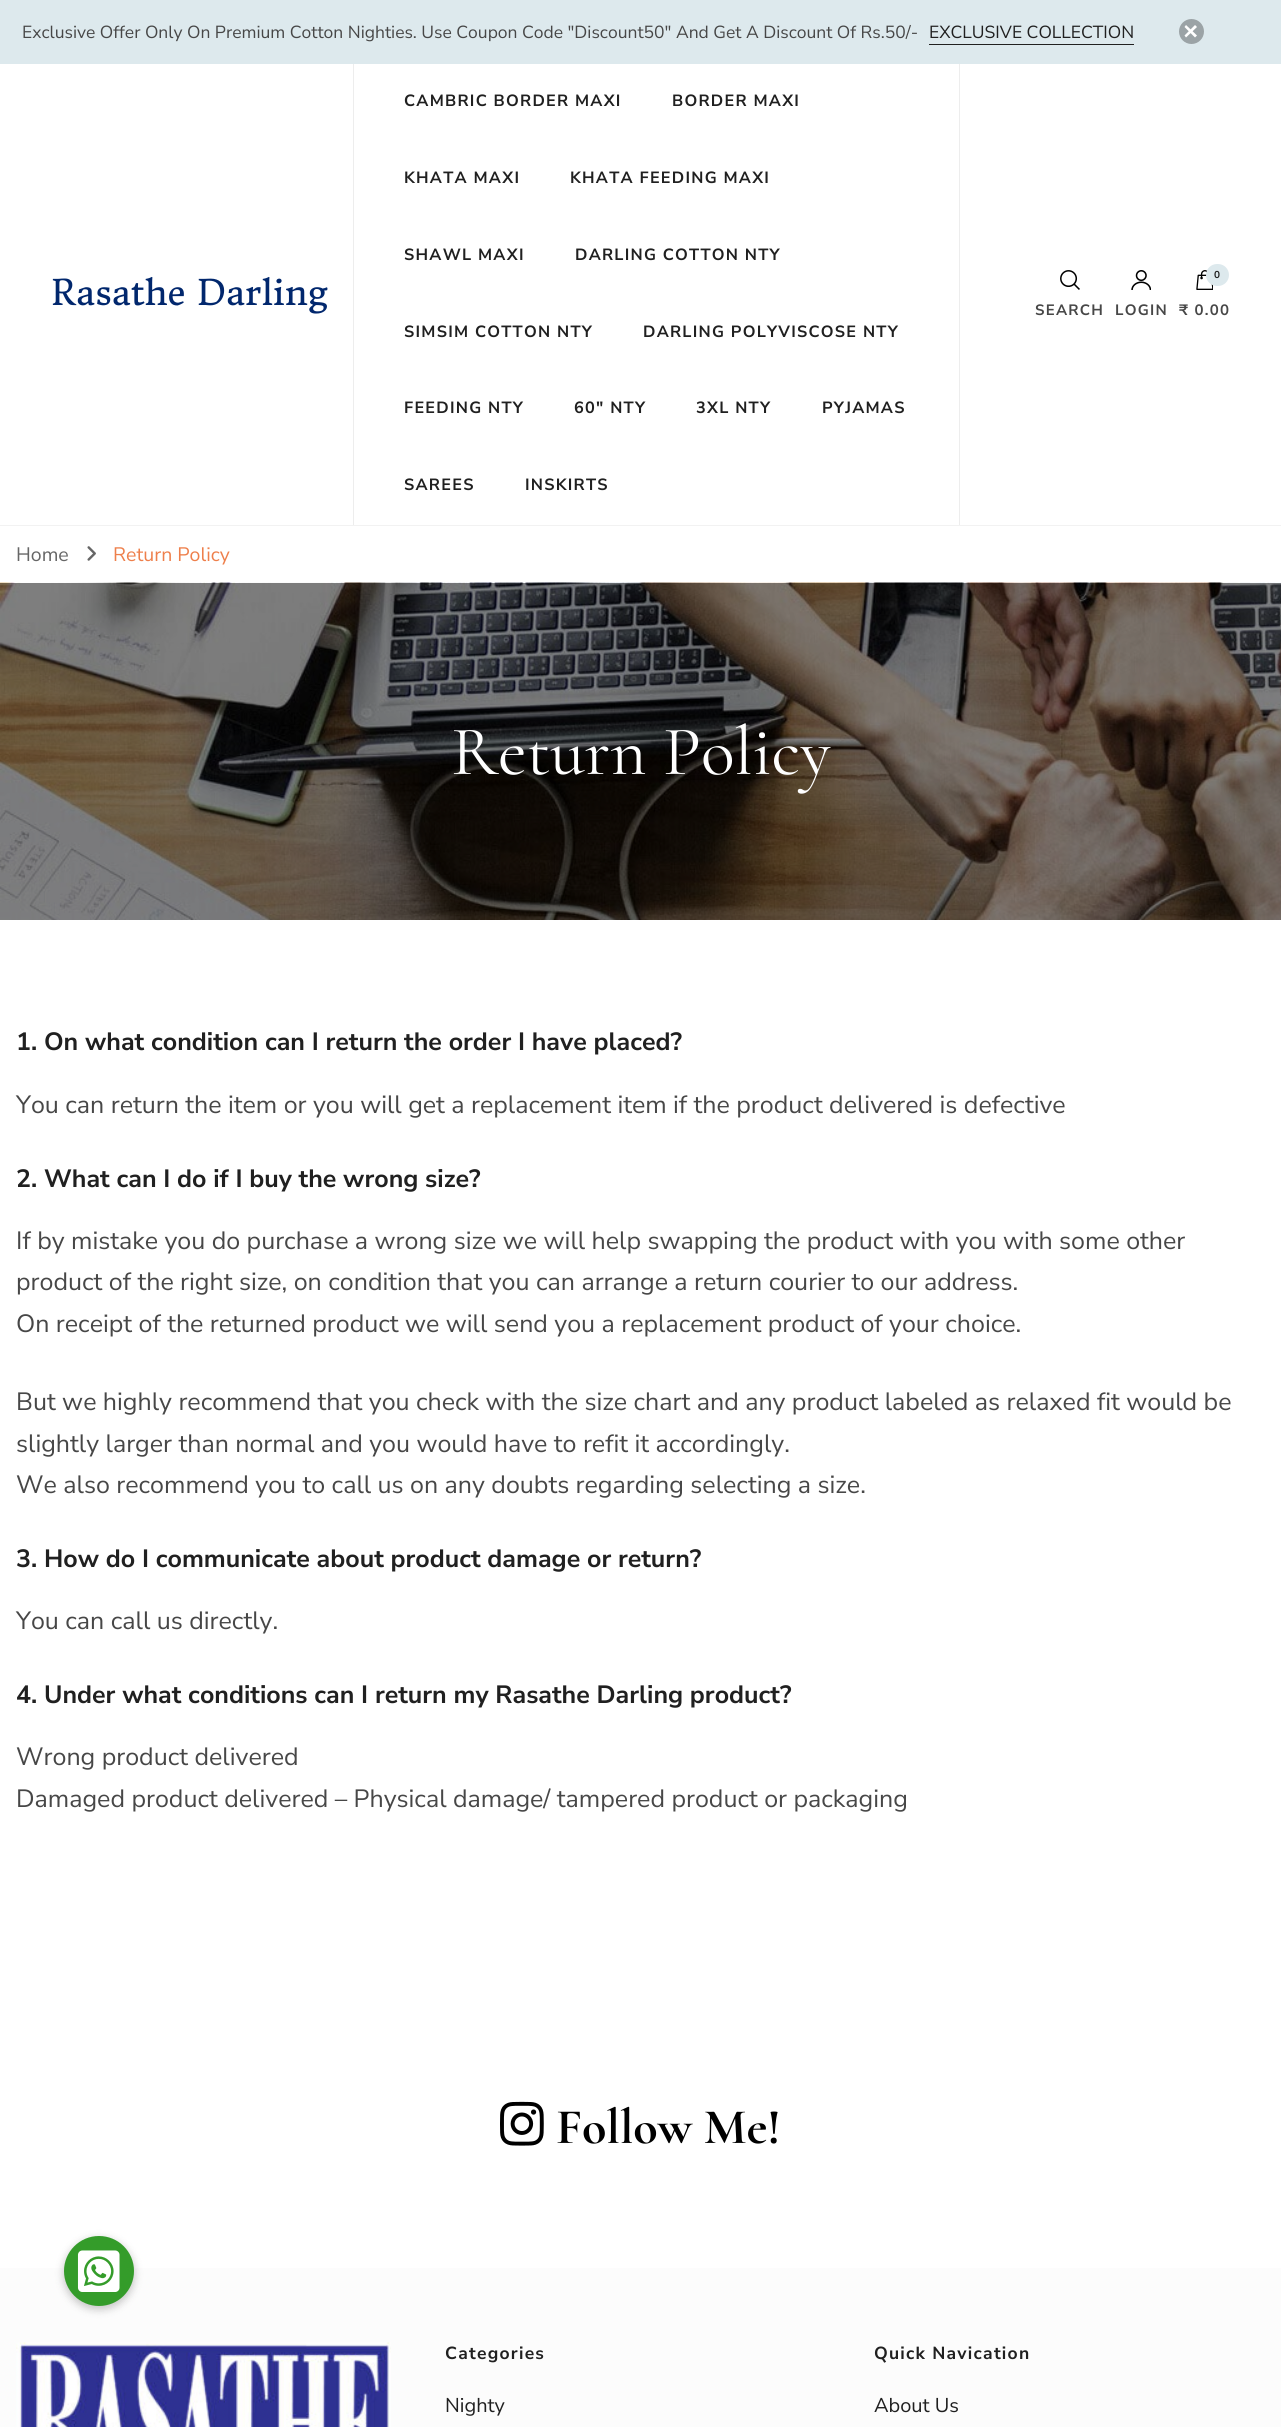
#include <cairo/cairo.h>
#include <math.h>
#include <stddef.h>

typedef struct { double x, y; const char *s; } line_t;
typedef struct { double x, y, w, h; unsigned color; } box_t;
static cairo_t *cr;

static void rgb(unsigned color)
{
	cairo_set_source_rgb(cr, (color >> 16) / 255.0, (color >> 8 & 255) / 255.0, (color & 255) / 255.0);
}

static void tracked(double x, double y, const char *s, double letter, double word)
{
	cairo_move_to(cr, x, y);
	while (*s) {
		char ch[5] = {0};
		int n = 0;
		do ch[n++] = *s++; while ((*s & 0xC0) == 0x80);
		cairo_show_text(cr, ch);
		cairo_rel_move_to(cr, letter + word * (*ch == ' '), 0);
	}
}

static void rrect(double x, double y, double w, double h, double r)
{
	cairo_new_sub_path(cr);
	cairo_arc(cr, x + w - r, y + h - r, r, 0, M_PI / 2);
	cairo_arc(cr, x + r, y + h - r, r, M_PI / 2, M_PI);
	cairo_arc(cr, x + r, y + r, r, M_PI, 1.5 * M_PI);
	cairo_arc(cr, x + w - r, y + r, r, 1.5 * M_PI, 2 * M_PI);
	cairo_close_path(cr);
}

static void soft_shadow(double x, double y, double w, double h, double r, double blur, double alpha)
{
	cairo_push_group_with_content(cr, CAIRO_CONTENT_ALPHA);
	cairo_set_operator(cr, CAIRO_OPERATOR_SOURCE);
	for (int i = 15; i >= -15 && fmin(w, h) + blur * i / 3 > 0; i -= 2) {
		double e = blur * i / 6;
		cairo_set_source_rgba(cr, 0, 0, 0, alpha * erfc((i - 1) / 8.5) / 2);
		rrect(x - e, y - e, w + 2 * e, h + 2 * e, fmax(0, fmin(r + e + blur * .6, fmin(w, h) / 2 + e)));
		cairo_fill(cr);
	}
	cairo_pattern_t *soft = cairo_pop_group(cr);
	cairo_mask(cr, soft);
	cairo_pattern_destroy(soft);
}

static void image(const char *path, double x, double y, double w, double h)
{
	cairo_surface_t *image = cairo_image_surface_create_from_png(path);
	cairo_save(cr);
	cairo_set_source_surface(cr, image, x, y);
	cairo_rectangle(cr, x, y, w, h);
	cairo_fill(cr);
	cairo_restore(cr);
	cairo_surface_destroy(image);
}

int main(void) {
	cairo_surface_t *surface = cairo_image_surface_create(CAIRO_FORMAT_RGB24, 1281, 2427);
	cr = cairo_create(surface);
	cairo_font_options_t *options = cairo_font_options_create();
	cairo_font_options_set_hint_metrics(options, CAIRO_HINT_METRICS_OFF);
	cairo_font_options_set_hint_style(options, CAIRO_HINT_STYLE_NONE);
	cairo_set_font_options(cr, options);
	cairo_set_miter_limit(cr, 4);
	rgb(0xffffff);
	cairo_paint(cr);
	rgb(0xdde9ed);
	cairo_rectangle(cr, 0, 0, 1281, 64);
	cairo_fill(cr);
	rgb(0x202020);
	cairo_rectangle(cr, 929, 44, 205, 1);
	cairo_fill(cr);
	rgb(0x9ba3a6);
	cairo_arc(cr, 1191.5, 31.5, 12.5, 0, 2 * M_PI);
	cairo_fill(cr);
	rgb(0xffffff);
	cairo_new_path(cr);
	cairo_move_to(cr, 1186, 25);
	cairo_line_to(cr, 1197, 35.5);
	cairo_line_to(cr, 1195, 37.5);
	cairo_line_to(cr, 1184.5, 27);
	cairo_close_path(cr);
	cairo_fill(cr);
	cairo_new_path(cr);
	cairo_move_to(cr, 1184.5, 35.5);
	cairo_line_to(cr, 1195, 25);
	cairo_line_to(cr, 1197, 27);
	cairo_line_to(cr, 1186, 37.5);
	cairo_close_path(cr);
	cairo_fill(cr);
	{
		static const box_t items[] = {
			{0, 525, 1281, 1, 0xf2f2f2},
			{353, 64, 1, 461, 0xededed},
			{959, 64, 1, 461, 0xededed},
		};
		for (size_t i = 0; i < sizeof items / sizeof *items; i++) {
			rgb(items[i].color);
			cairo_rectangle(cr, items[i].x, items[i].y, items[i].w, items[i].h);
			cairo_fill(cr);
		}
	}
	image("img/1.png", 1060, 270, 20, 20);
	image("img/2.png", 1131, 270, 20, 20);
	image("img/3.png", 1196, 270, 17, 20);
	rgb(0xdde9ed);
	rrect(1206, 264, 23, 22, 11);
	cairo_fill(cr);
	image("img/4.png", 87, 546, 9, 15);
	image("img/5.png", 0, 582, 1281, 338);
	image("img/6.png", 500, 2101, 44, 45);
	rgb(0xfcfcfc);
	cairo_rectangle(cr, 0, 2268, 1281, 159);
	cairo_fill(cr);
	image("img/7.png", 16, 2342, 375, 85);
	rgb(0x000000);
	soft_shadow(63, 2238, 72, 72, 36, 4, 0.2);
	rgb(0x349c2a);
	cairo_arc(cr, 99, 2271, 35, 0, 2 * M_PI);
	cairo_fill(cr);
	image("img/8.png", 77, 2250, 43, 42);
	cairo_select_font_face(cr, "Nunito Sans", CAIRO_FONT_SLANT_NORMAL, CAIRO_FONT_WEIGHT_NORMAL);
	cairo_set_font_size(cr, 17.5);
	rgb(0x474747);
	cairo_move_to(cr, 22, 38);
	cairo_show_text(cr, "Exclusive Offer Only On Premium Cotton Nighties. Use Coupon Code \"Discount50\" And Get A Discount Of Rs.50/-");
	rgb(0x202020);
	cairo_move_to(cr, 929, 38);
	cairo_show_text(cr, "EXCLUSIVE COLLECTION");
	cairo_select_font_face(cr, "Donegal One", CAIRO_FONT_SLANT_NORMAL, CAIRO_FONT_WEIGHT_NORMAL);
	cairo_set_font_size(cr, 35);
	rgb(0x01276d);
	cairo_move_to(cr, 51, 305);
	cairo_show_text(cr, "Rasathe Darling");
	cairo_select_font_face(cr, "Nunito Sans", CAIRO_FONT_SLANT_NORMAL, CAIRO_FONT_WEIGHT_BOLD);
	cairo_set_font_size(cr, 16.25);
	rgb(0x202020);
	{
		static const line_t items[] = {
			{404, 106, "CAMBRIC BORDER MAXI"},
			{672, 106, "BORDER MAXI"},
			{404, 183, "KHATA MAXI"},
			{570, 183, "KHATA FEEDING MAXI"},
			{404, 260, "SHAWL MAXI"},
			{575, 260, "DARLING COTTON NTY"},
			{404, 337, "SIMSIM COTTON NTY"},
			{643, 337, "DARLING POLYVISCOSE NTY"},
			{404, 413, "FEEDING NTY"},
			{574, 413, "60″ NTY"},
			{696, 413, "3XL NTY"},
			{822, 413, "PYJAMAS"},
			{404, 490, "SAREES"},
			{525, 490, "INSKIRTS"},
		};
		for (size_t i = 0; i < sizeof items / sizeof *items; i++) {
			tracked(items[i].x, items[i].y, items[i].s, 1.25, 0);
		}
	}
	cairo_set_font_size(cr, 15);
	rgb(0x474747);
	tracked(1035, 315, "SEARCH", 1.25, 0);
	tracked(1115, 315, "LOGIN", 1.25, 0);
	cairo_set_font_size(cr, 10);
	rgb(0x202020);
	tracked(1214, 278, "0", 1.25, 0);
	cairo_set_font_size(cr, 15);
	rgb(0x474747);
	tracked(1179, 315, "₹ 0.00", 1.25, 0);
	cairo_select_font_face(cr, "Nunito Sans", CAIRO_FONT_SLANT_NORMAL, CAIRO_FONT_WEIGHT_NORMAL);
	cairo_set_font_size(cr, 19.5);
	rgb(0x666666);
	cairo_move_to(cr, 16, 561);
	cairo_show_text(cr, "Home");
	rgb(0xee7f4b);
	cairo_move_to(cr, 113, 561);
	cairo_show_text(cr, "Return Policy");
	cairo_select_font_face(cr, "Cormorant", CAIRO_FONT_SLANT_NORMAL, CAIRO_FONT_WEIGHT_NORMAL);
	cairo_set_font_size(cr, 70);
	rgb(0xffffff);
	cairo_move_to(cr, 451, 774);
	cairo_show_text(cr, "Return Policy");
	cairo_select_font_face(cr, "Nunito Sans", CAIRO_FONT_SLANT_NORMAL, CAIRO_FONT_WEIGHT_BOLD);
	cairo_set_font_size(cr, 25);
	rgb(0x202020);
	cairo_move_to(cr, 16, 1050);
	cairo_show_text(cr, "1. On what condition can I return the order I have placed?");
	cairo_select_font_face(cr, "Nunito Sans", CAIRO_FONT_SLANT_NORMAL, CAIRO_FONT_WEIGHT_NORMAL);
	rgb(0x474747);
	cairo_move_to(cr, 16, 1113);
	cairo_show_text(cr, "You can return the item or you will get a replacement item if the product delivered is defective");
	cairo_select_font_face(cr, "Nunito Sans", CAIRO_FONT_SLANT_NORMAL, CAIRO_FONT_WEIGHT_BOLD);
	rgb(0x202020);
	cairo_move_to(cr, 16, 1187);
	cairo_show_text(cr, "2. What can I do if I buy the wrong size?");
	cairo_select_font_face(cr, "Nunito Sans", CAIRO_FONT_SLANT_NORMAL, CAIRO_FONT_WEIGHT_NORMAL);
	rgb(0x474747);
	{
		static const line_t items[] = {
			{16, 1249, "If by mistake you do purchase a wrong size we will help swapping the product with you with some other"},
			{16, 1290, "product of the right size, on condition that you can arrange a return courier to our address."},
			{16, 1332, "On receipt of the returned product we will send you a replacement product of your choice."},
			{16, 1410, "But we highly recommend that you check with the size chart and any product labeled as relaxed fit would be"},
			{16, 1452, "slightly larger than normal and you would have to refit it accordingly."},
			{16, 1493, "We also recommend you to call us on any doubts regarding selecting a size."},
		};
		for (size_t i = 0; i < sizeof items / sizeof *items; i++) {
			cairo_move_to(cr, items[i].x, items[i].y);
			cairo_show_text(cr, items[i].s);
		}
	}
	cairo_select_font_face(cr, "Nunito Sans", CAIRO_FONT_SLANT_NORMAL, CAIRO_FONT_WEIGHT_BOLD);
	rgb(0x202020);
	cairo_move_to(cr, 16, 1567);
	cairo_show_text(cr, "3. How do I communicate about product damage or return?");
	cairo_select_font_face(cr, "Nunito Sans", CAIRO_FONT_SLANT_NORMAL, CAIRO_FONT_WEIGHT_NORMAL);
	rgb(0x474747);
	cairo_move_to(cr, 16, 1629);
	cairo_show_text(cr, "You can call us directly.");
	cairo_select_font_face(cr, "Nunito Sans", CAIRO_FONT_SLANT_NORMAL, CAIRO_FONT_WEIGHT_BOLD);
	rgb(0x202020);
	cairo_move_to(cr, 16, 1703);
	cairo_show_text(cr, "4. Under what conditions can I return my Rasathe Darling product?");
	cairo_select_font_face(cr, "Nunito Sans", CAIRO_FONT_SLANT_NORMAL, CAIRO_FONT_WEIGHT_NORMAL);
	rgb(0x474747);
	cairo_move_to(cr, 16, 1765);
	cairo_show_text(cr, "Wrong product delivered");
	cairo_move_to(cr, 16, 1807);
	cairo_show_text(cr, "Damaged product delivered – Physical damage/ tampered product or packaging");
	cairo_select_font_face(cr, "Cormorant", CAIRO_FONT_SLANT_NORMAL, CAIRO_FONT_WEIGHT_BOLD);
	cairo_set_font_size(cr, 50);
	rgb(0x000000);
	cairo_move_to(cr, 556, 2143);
	cairo_show_text(cr, "Follow Me!");
	cairo_select_font_face(cr, "Nunito Sans", CAIRO_FONT_SLANT_NORMAL, CAIRO_FONT_WEIGHT_BOLD);
	cairo_set_font_size(cr, 17.5);
	rgb(0x202020);
	tracked(445, 2359, "Categories", 1.25, 0);
	cairo_select_font_face(cr, "Nunito Sans", CAIRO_FONT_SLANT_NORMAL, CAIRO_FONT_WEIGHT_NORMAL);
	cairo_set_font_size(cr, 20);
	cairo_move_to(cr, 445, 2412);
	cairo_show_text(cr, "Nighty");
	cairo_select_font_face(cr, "Nunito Sans", CAIRO_FONT_SLANT_NORMAL, CAIRO_FONT_WEIGHT_BOLD);
	cairo_set_font_size(cr, 17.5);
	tracked(874, 2359, "Quick Navication", 1.25, 0);
	cairo_select_font_face(cr, "Nunito Sans", CAIRO_FONT_SLANT_NORMAL, CAIRO_FONT_WEIGHT_NORMAL);
	cairo_set_font_size(cr, 20);
	cairo_move_to(cr, 874, 2412);
	cairo_show_text(cr, "About Us");
	cairo_surface_write_to_png(surface, "page.png");
	cairo_font_options_destroy(options);
	cairo_destroy(cr);
	cairo_surface_destroy(surface);
	return 0;
}
